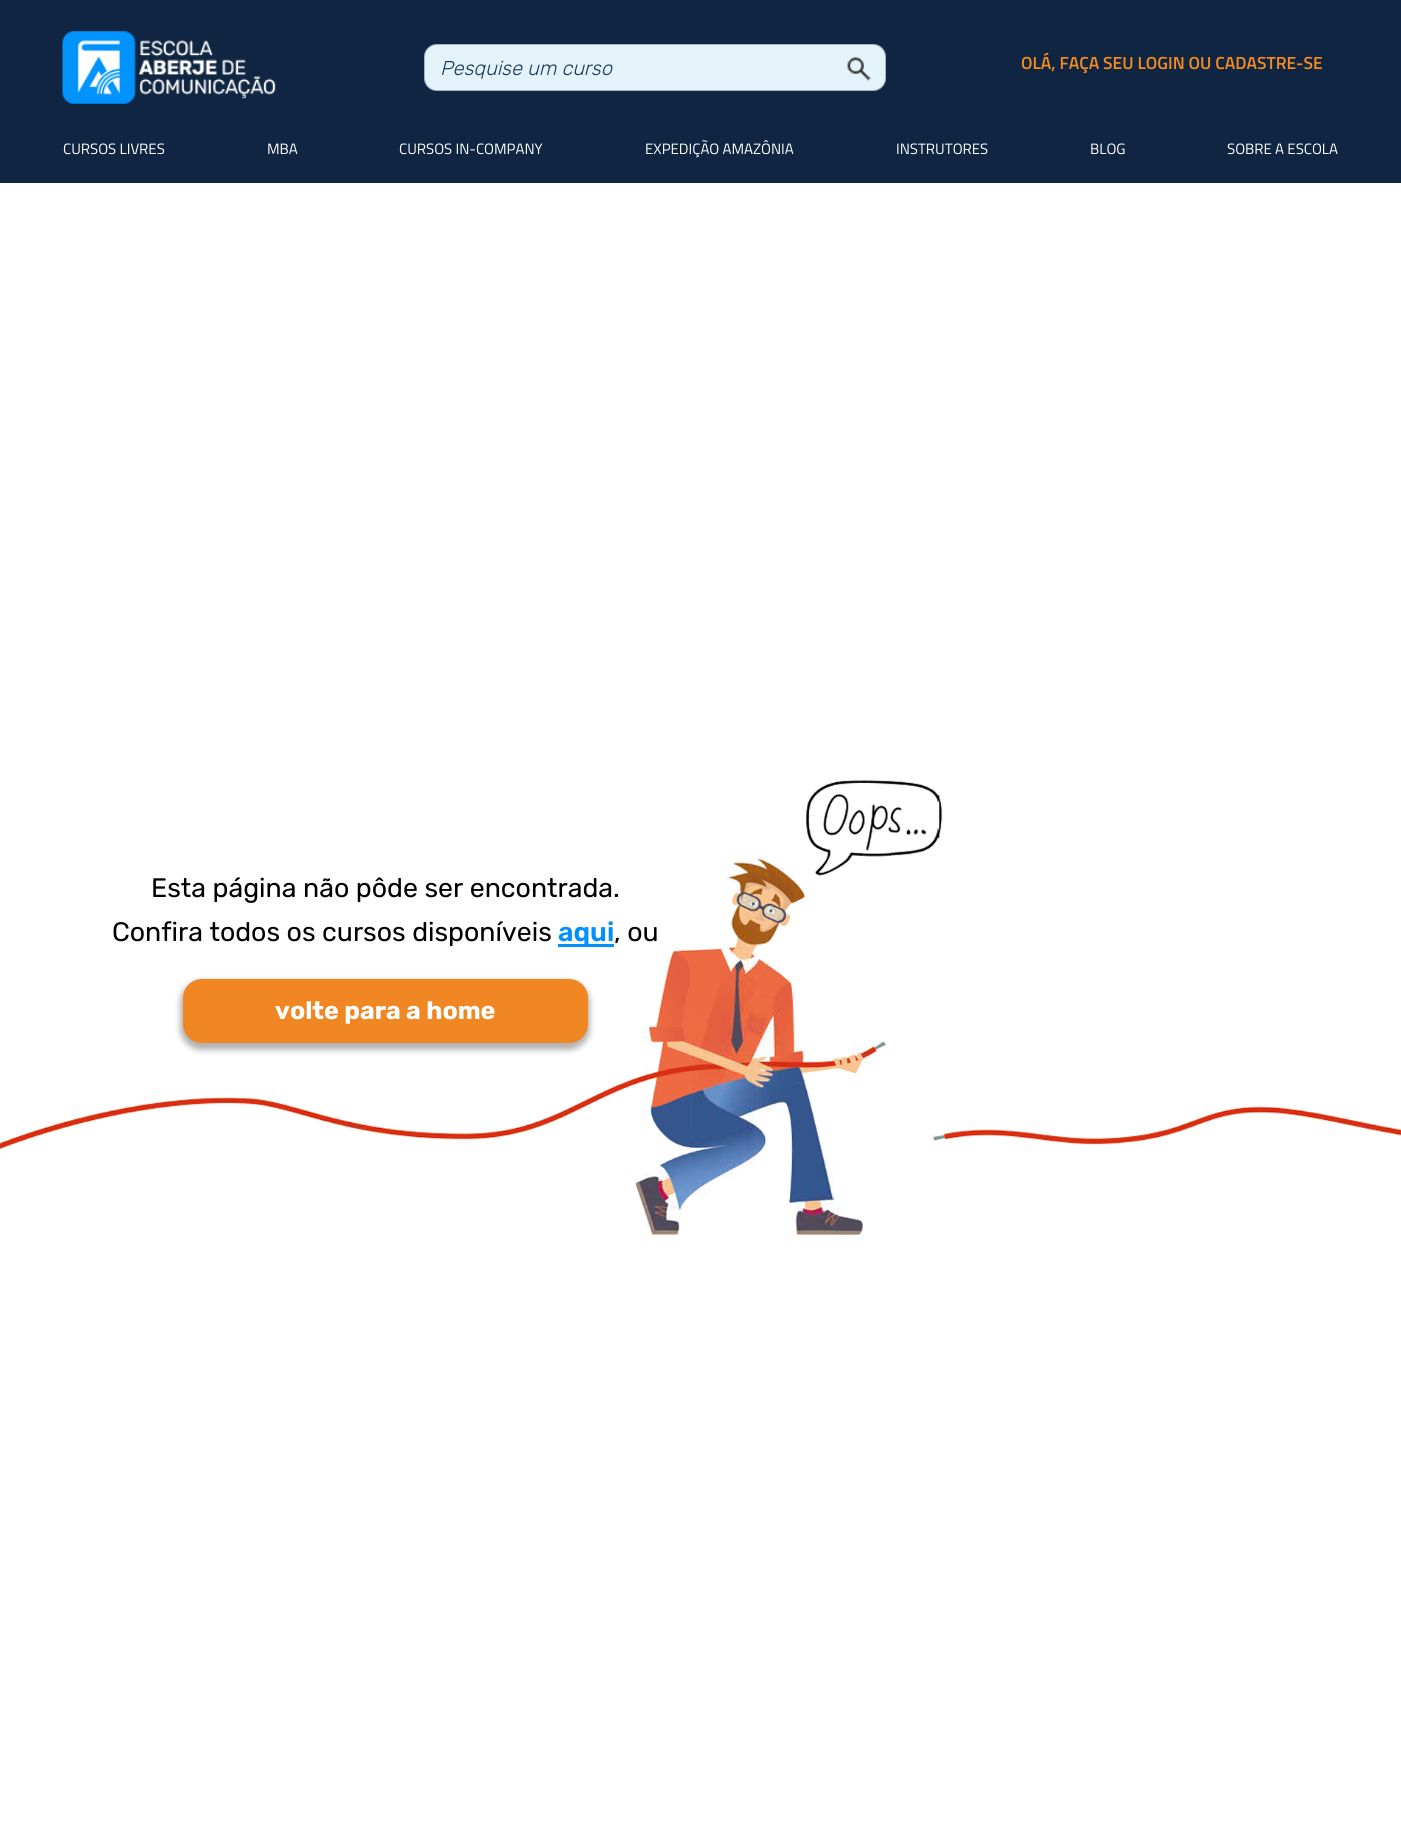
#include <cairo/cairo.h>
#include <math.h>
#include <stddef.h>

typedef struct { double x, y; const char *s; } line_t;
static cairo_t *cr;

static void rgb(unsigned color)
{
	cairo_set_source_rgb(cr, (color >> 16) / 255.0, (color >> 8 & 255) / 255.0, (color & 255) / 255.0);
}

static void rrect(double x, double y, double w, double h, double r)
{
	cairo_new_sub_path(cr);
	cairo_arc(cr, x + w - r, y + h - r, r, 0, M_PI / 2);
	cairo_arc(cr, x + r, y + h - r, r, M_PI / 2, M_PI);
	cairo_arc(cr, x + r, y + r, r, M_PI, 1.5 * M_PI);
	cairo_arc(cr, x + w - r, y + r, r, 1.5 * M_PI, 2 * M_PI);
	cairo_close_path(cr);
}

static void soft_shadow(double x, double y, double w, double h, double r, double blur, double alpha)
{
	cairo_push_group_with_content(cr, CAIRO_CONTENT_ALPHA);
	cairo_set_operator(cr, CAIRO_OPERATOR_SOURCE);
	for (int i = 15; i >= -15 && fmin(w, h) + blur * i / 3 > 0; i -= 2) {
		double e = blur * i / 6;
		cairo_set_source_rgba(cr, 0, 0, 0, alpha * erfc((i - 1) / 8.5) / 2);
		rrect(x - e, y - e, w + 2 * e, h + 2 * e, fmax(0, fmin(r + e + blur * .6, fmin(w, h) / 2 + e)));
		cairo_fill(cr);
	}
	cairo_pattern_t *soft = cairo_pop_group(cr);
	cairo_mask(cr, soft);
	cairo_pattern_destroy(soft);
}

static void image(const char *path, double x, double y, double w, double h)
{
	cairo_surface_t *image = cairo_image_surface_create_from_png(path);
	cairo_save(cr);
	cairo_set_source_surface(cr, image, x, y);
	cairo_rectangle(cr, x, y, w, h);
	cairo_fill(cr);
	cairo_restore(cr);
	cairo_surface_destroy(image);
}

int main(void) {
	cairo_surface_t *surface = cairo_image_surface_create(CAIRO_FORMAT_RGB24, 1401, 1832);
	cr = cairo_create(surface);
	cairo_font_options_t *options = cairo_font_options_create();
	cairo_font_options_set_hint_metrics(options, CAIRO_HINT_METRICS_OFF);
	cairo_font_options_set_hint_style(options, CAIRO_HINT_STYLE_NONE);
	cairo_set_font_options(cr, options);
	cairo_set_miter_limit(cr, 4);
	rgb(0xffffff);
	cairo_paint(cr);
	rgb(0x0f2541);
	cairo_rectangle(cr, 0, 0, 1401, 183);
	cairo_fill(cr);
	image("img/1.png", 62, 31, 214, 73);
	rgb(0xe4f2f9);
	rrect(424, 44, 462, 47, 13);
	cairo_fill(cr);
	image("img/2.png", 847, 57, 25, 25);
	rrect(424.5, 44.5, 461, 46, 12.5);
	cairo_set_source_rgba(cr, 0.118, 0.098, 0.314, 0.3);
	cairo_set_line_width(cr, 1);
	cairo_stroke(cr);
	image("img/3.png", 0, 780, 1401, 455);
	rgb(0x0091ff);
	cairo_rectangle(cr, 558, 944, 56, 3);
	cairo_fill(cr);
	rgb(0x000000);
	soft_shadow(180, 981, 410, 69, 21, 3, 0.3);
	rgb(0xf08723);
	rrect(183, 979, 405, 64, 19);
	cairo_fill(cr);
	cairo_select_font_face(cr, "Rubik Light", CAIRO_FONT_SLANT_ITALIC, CAIRO_FONT_WEIGHT_NORMAL);
	cairo_set_font_size(cr, 20);
	rgb(0x173a5a);
	cairo_move_to(cr, 440, 75);
	cairo_show_text(cr, "Pesquise um curso");
	cairo_select_font_face(cr, "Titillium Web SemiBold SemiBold", CAIRO_FONT_SLANT_NORMAL, CAIRO_FONT_WEIGHT_NORMAL);
	cairo_set_font_size(cr, 17.5);
	rgb(0xf58c1f);
	cairo_move_to(cr, 1021, 69);
	cairo_show_text(cr, "OLÁ, FAÇA SEU LOGIN OU CADASTRE-SE");
	cairo_select_font_face(cr, "Titillium Web", CAIRO_FONT_SLANT_NORMAL, CAIRO_FONT_WEIGHT_NORMAL);
	cairo_set_font_size(cr, 15);
	rgb(0xffffff);
	{
		static const line_t items[] = {
			{63, 154, "CURSOS LIVRES"},
			{267, 154, "MBA"},
			{399, 154, "CURSOS IN-COMPANY"},
			{645, 154, "EXPEDIÇÃO AMAZÔNIA"},
			{896, 154, "INSTRUTORES"},
			{1090, 154, "BLOG"},
			{1227, 154, "SOBRE A ESCOLA"},
		};
		for (size_t i = 0; i < sizeof items / sizeof *items; i++) {
			cairo_move_to(cr, items[i].x, items[i].y);
			cairo_show_text(cr, items[i].s);
		}
	}
	cairo_select_font_face(cr, "Rubik Light", CAIRO_FONT_SLANT_NORMAL, CAIRO_FONT_WEIGHT_NORMAL);
	cairo_set_font_size(cr, 26.7);
	rgb(0x000000);
	cairo_move_to(cr, 151, 897);
	cairo_show_text(cr, "Esta página não pôde ser encontrada.");
	cairo_move_to(cr, 112, 941);
	cairo_show_text(cr, "Confira todos os cursos disponíveis");
	cairo_select_font_face(cr, "Rubik SemiBold", CAIRO_FONT_SLANT_NORMAL, CAIRO_FONT_WEIGHT_NORMAL);
	rgb(0x0091ff);
	cairo_move_to(cr, 558, 941);
	cairo_show_text(cr, "aqui");
	cairo_select_font_face(cr, "Rubik Light", CAIRO_FONT_SLANT_NORMAL, CAIRO_FONT_WEIGHT_NORMAL);
	rgb(0x000000);
	cairo_move_to(cr, 614, 941);
	cairo_show_text(cr, ", ou");
	cairo_select_font_face(cr, "Rubik", CAIRO_FONT_SLANT_NORMAL, CAIRO_FONT_WEIGHT_BOLD);
	cairo_set_font_size(cr, 25);
	rgb(0xffffff);
	cairo_move_to(cr, 275, 1019);
	cairo_show_text(cr, "volte para a home");
	cairo_surface_write_to_png(surface, "page.png");
	cairo_font_options_destroy(options);
	cairo_destroy(cr);
	cairo_surface_destroy(surface);
	return 0;
}
